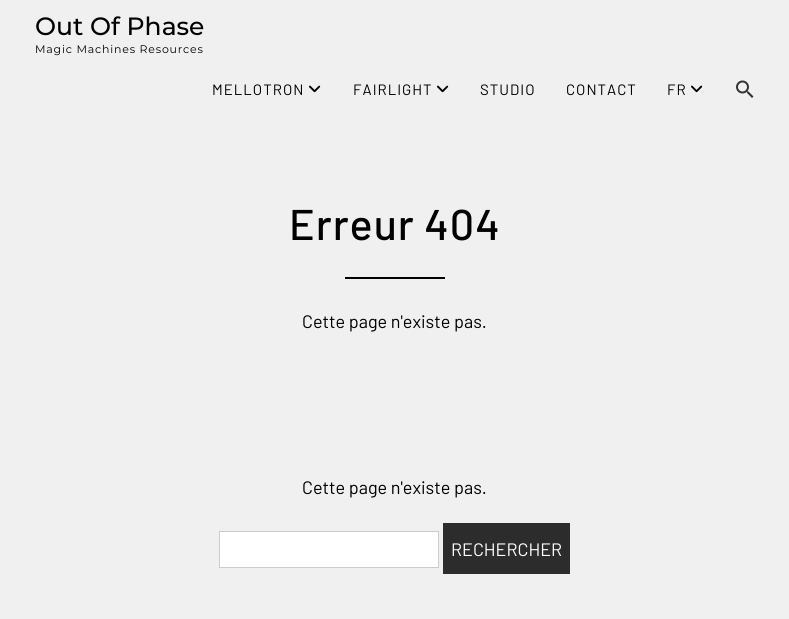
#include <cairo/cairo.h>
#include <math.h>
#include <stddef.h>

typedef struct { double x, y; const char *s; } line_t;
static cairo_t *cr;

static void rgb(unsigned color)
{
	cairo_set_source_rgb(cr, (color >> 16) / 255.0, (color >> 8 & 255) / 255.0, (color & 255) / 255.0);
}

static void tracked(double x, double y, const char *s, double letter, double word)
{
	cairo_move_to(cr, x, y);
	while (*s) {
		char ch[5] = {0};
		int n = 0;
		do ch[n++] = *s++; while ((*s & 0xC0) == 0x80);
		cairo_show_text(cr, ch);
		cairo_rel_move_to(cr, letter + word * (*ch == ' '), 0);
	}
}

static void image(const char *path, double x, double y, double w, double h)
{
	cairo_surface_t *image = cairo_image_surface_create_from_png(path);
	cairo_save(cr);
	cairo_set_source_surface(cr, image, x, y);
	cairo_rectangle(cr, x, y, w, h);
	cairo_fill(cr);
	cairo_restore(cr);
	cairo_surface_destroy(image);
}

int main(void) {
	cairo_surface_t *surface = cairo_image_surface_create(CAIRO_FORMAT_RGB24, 789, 619);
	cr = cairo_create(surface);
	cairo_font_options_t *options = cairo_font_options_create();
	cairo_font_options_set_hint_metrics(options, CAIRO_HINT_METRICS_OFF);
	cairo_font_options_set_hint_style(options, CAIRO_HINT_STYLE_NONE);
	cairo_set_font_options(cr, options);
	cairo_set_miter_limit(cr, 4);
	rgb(0xf0f0f0);
	cairo_paint(cr);
	image("img/1.png", 309, 85, 12, 8);
	image("img/1.png", 437, 85, 12, 8);
	image("img/1.png", 691, 85, 12, 8);
	image("img/2.png", 736, 80, 18, 18);
	rgb(0x000000);
	cairo_rectangle(cr, 345, 277, 100, 2);
	cairo_fill(cr);
	rgb(0xffffff);
	cairo_rectangle(cr, 219.5, 531.5, 219, 36);
	cairo_fill_preserve(cr);
	rgb(0xcccccc);
	cairo_set_line_width(cr, 1);
	cairo_stroke(cr);
	rgb(0x2c2c2c);
	cairo_rectangle(cr, 443, 523, 127, 51);
	cairo_fill(cr);
	cairo_select_font_face(cr, "Montserrat Medium", CAIRO_FONT_SLANT_NORMAL, CAIRO_FONT_WEIGHT_NORMAL);
	cairo_set_font_size(cr, 25);
	rgb(0x000000);
	cairo_move_to(cr, 35, 35);
	cairo_show_text(cr, "Out Of Phase");
	cairo_select_font_face(cr, "Montserrat", CAIRO_FONT_SLANT_NORMAL, CAIRO_FONT_WEIGHT_NORMAL);
	cairo_set_font_size(cr, 11);
	tracked(35, 53, "Magic Machines Resources", 0.8, 0);
	cairo_select_font_face(cr, "Barlow", CAIRO_FONT_SLANT_NORMAL, CAIRO_FONT_WEIGHT_NORMAL);
	cairo_set_font_size(cr, 15);
	{
		static const line_t items[] = {
			{212, 95, "MELLOTRON"},
			{353, 95, "FAIRLIGHT"},
			{480, 95, "STUDIO"},
			{566, 95, "CONTACT"},
			{667, 95, "FR"},
		};
		for (size_t i = 0; i < sizeof items / sizeof *items; i++) {
			tracked(items[i].x, items[i].y, items[i].s, 1, 0);
		}
	}
	cairo_select_font_face(cr, "Barlow Medium", CAIRO_FONT_SLANT_NORMAL, CAIRO_FONT_WEIGHT_NORMAL);
	cairo_set_font_size(cr, 43);
	tracked(289, 240, "Erreur 404", 1, 0);
	cairo_select_font_face(cr, "Barlow", CAIRO_FONT_SLANT_NORMAL, CAIRO_FONT_WEIGHT_NORMAL);
	cairo_set_font_size(cr, 18);
	cairo_move_to(cr, 302, 328);
	cairo_show_text(cr, "Cette page n'existe pas.");
	cairo_move_to(cr, 302, 494);
	cairo_show_text(cr, "Cette page n'existe pas.");
	rgb(0xffffff);
	cairo_move_to(cr, 451, 556);
	cairo_show_text(cr, "RECHERCHER");
	cairo_surface_write_to_png(surface, "page.png");
	cairo_font_options_destroy(options);
	cairo_destroy(cr);
	cairo_surface_destroy(surface);
	return 0;
}
